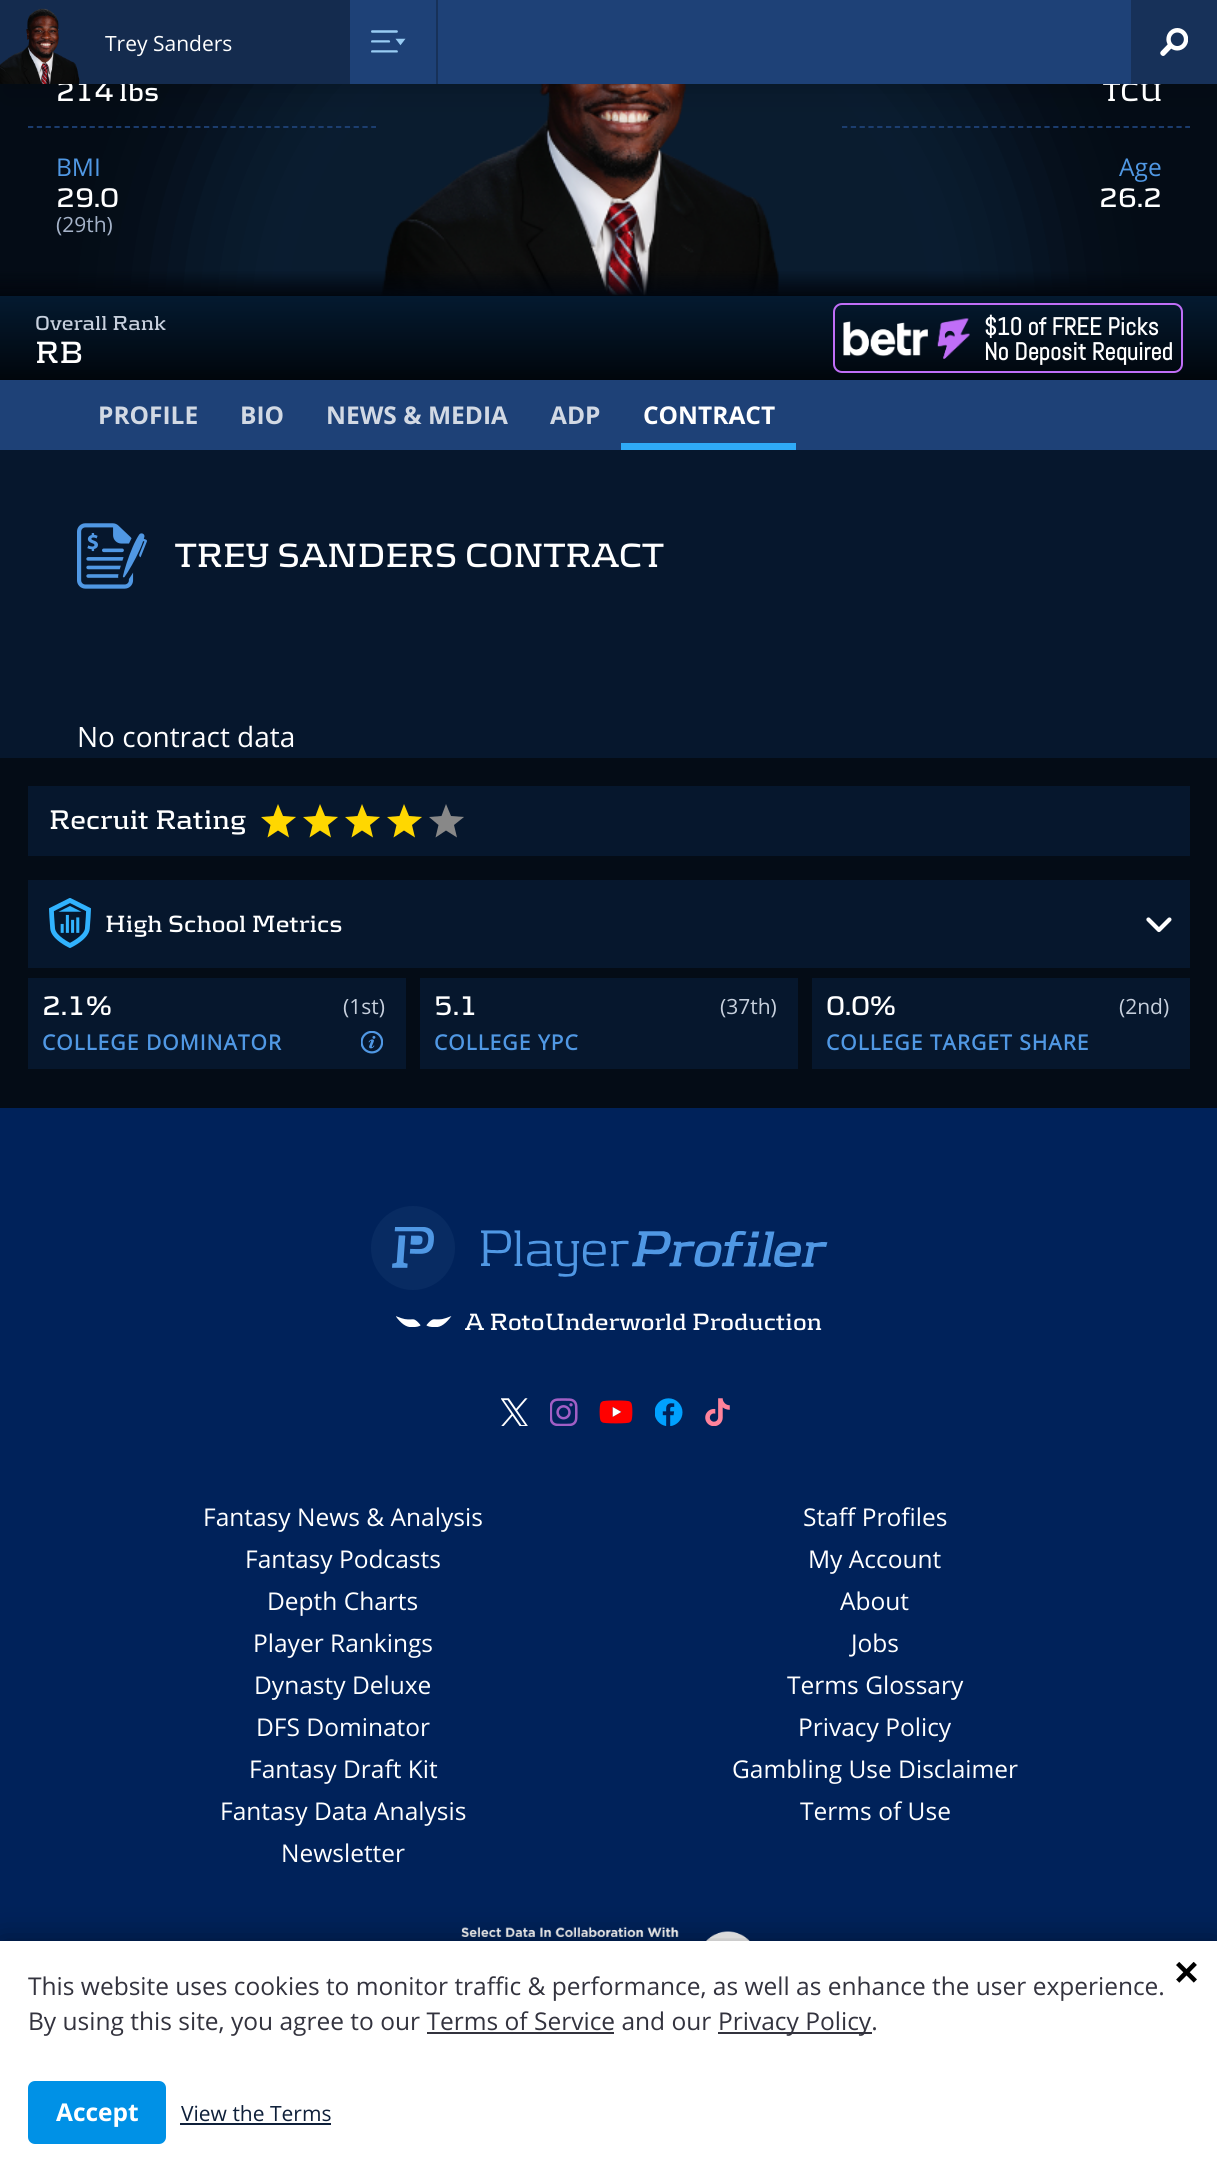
#include <cairo/cairo.h>
#include <math.h>
#include <stddef.h>

typedef struct { double x, y; const char *s; } line_t;
typedef struct { double x, y, w, h; unsigned color; } box_t;
static cairo_t *cr;

static void rgb(unsigned color)
{
	cairo_set_source_rgb(cr, (color >> 16) / 255.0, (color >> 8 & 255) / 255.0, (color & 255) / 255.0);
}

static void tracked(double x, double y, const char *s, double letter, double word)
{
	cairo_move_to(cr, x, y);
	while (*s) {
		char ch[5] = {0};
		int n = 0;
		do ch[n++] = *s++; while ((*s & 0xC0) == 0x80);
		cairo_show_text(cr, ch);
		cairo_rel_move_to(cr, letter + word * (*ch == ' '), 0);
	}
}

static void rrect(double x, double y, double w, double h, double r)
{
	cairo_new_sub_path(cr);
	cairo_arc(cr, x + w - r, y + h - r, r, 0, M_PI / 2);
	cairo_arc(cr, x + r, y + h - r, r, M_PI / 2, M_PI);
	cairo_arc(cr, x + r, y + r, r, M_PI, 1.5 * M_PI);
	cairo_arc(cr, x + w - r, y + r, r, 1.5 * M_PI, 2 * M_PI);
	cairo_close_path(cr);
}

static void soft_shadow(double x, double y, double w, double h, double r, double blur, double alpha)
{
	cairo_push_group_with_content(cr, CAIRO_CONTENT_ALPHA);
	cairo_set_operator(cr, CAIRO_OPERATOR_SOURCE);
	for (int i = 15; i >= -15 && fmin(w, h) + blur * i / 3 > 0; i -= 2) {
		double e = blur * i / 6;
		cairo_set_source_rgba(cr, 0, 0, 0, alpha * erfc((i - 1) / 8.5) / 2);
		rrect(x - e, y - e, w + 2 * e, h + 2 * e, fmax(0, fmin(r + e + blur * .6, fmin(w, h) / 2 + e)));
		cairo_fill(cr);
	}
	cairo_pattern_t *soft = cairo_pop_group(cr);
	cairo_mask(cr, soft);
	cairo_pattern_destroy(soft);
}

static void image(const char *path, double x, double y, double w, double h)
{
	cairo_surface_t *image = cairo_image_surface_create_from_png(path);
	cairo_save(cr);
	cairo_set_source_surface(cr, image, x, y);
	cairo_rectangle(cr, x, y, w, h);
	cairo_fill(cr);
	cairo_restore(cr);
	cairo_surface_destroy(image);
}

int main(void) {
	cairo_surface_t *surface = cairo_image_surface_create(CAIRO_FORMAT_RGB24, 1217, 2171);
	cr = cairo_create(surface);
	cairo_font_options_t *options = cairo_font_options_create();
	cairo_font_options_set_hint_metrics(options, CAIRO_HINT_METRICS_OFF);
	cairo_font_options_set_hint_style(options, CAIRO_HINT_STYLE_NONE);
	cairo_set_font_options(cr, options);
	cairo_set_miter_limit(cr, 4);
	cairo_pattern_t *gradient;
	rgb(0x06172d);
	cairo_paint(cr);
	rgb(0x040c16);
	cairo_rectangle(cr, 0, 84, 1217, 212);
	cairo_fill(cr);
	image("img/6.png", 77, 523, 70, 66);
	cairo_rectangle(cr, 0, 758, 1217, 350);
	cairo_fill(cr);
	cairo_save(cr);
	cairo_rectangle(cr, 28, 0, 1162, 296);
	cairo_clip(cr);
	rgb(0x18436d);
	soft_shadow(173, -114, 872, 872, 436, 52.5, 0.3);
	cairo_restore(cr);
	image("img/4.png", 381, 84, 398, 212);
	rgb(0x000000);
	soft_shadow(4, 11, 1211, 77, 0, 5, 0.05);
	cairo_new_path(cr);
	cairo_move_to(cr, 28, 127);
	cairo_line_to(cr, 376, 127);
	rgb(0x1e4177);
	cairo_set_line_width(cr, 1.8);
	cairo_set_dash(cr, (double[]){5.25, 3.55}, 2, 0);
	cairo_stroke(cr);
	cairo_new_path(cr);
	cairo_move_to(cr, 842, 127);
	cairo_line_to(cr, 1190, 127);
	cairo_stroke(cr);
	rgb(0x000000);
	soft_shadow(5, 23, 1208, 73, 0, 13, 0.1);
	gradient = cairo_pattern_create_linear(609, 380, 609, 296);
	cairo_pattern_add_color_stop_rgba(gradient, 0, 0.004, 0.024, 0.047, 1);
	cairo_pattern_add_color_stop_rgba(gradient, 1, 0.016, 0.102, 0.188, 1);
	cairo_set_source(cr, gradient);
	cairo_pattern_destroy(gradient);
	cairo_rectangle(cr, 0, 296, 1217, 84);
	cairo_fill(cr);
	rrect(834, 304, 348, 68, 8);
	rgb(0xc06ef7);
	cairo_set_line_width(cr, 2);
	cairo_set_dash(cr, NULL, 0, 0);
	cairo_stroke(cr);
	image("img/5.png", 843, 318, 127, 41);
	gradient = cairo_pattern_create_linear(609, 296, 609, 270);
	cairo_pattern_add_color_stop_rgba(gradient, 0, 0.004, 0.024, 0.055, 1);
	cairo_pattern_add_color_stop_rgba(gradient, 1, 0.004, 0.024, 0.055, 0);
	cairo_set_source(cr, gradient);
	cairo_pattern_destroy(gradient);
	cairo_rectangle(cr, 0, 271, 1217, 25);
	cairo_fill(cr);
	{
		static const box_t items[] = {
			{0, 380, 1217, 70, 0x1e4177},
			{621, 443, 175, 7, 0x2faaf7},
			{28, 786, 1162, 70, 0x06172d},
		};
		for (size_t i = 0; i < sizeof items / sizeof *items; i++) {
			rgb(items[i].color);
			cairo_rectangle(cr, items[i].x, items[i].y, items[i].w, items[i].h);
			cairo_fill(cr);
		}
	}
	rgb(0xffd700);
	cairo_new_path(cr);
	cairo_move_to(cr, 296, 817);
	cairo_line_to(cr, 283, 816);
	cairo_line_to(cr, 278, 804);
	cairo_line_to(cr, 273.5, 816);
	cairo_line_to(cr, 261, 817);
	cairo_line_to(cr, 270.5, 825);
	cairo_line_to(cr, 267.5, 837.5);
	cairo_line_to(cr, 278, 830.5);
	cairo_line_to(cr, 289, 837.5);
	cairo_line_to(cr, 286, 825);
	cairo_close_path(cr);
	cairo_fill(cr);
	cairo_new_path(cr);
	cairo_move_to(cr, 338, 817);
	cairo_line_to(cr, 325, 816);
	cairo_line_to(cr, 320, 804);
	cairo_line_to(cr, 315.5, 816);
	cairo_line_to(cr, 303, 817);
	cairo_line_to(cr, 312.5, 825);
	cairo_line_to(cr, 309.5, 837.5);
	cairo_line_to(cr, 320, 830.5);
	cairo_line_to(cr, 331, 837.5);
	cairo_line_to(cr, 328, 825);
	cairo_close_path(cr);
	cairo_fill(cr);
	cairo_new_path(cr);
	cairo_move_to(cr, 380, 817);
	cairo_line_to(cr, 367, 816);
	cairo_line_to(cr, 362, 804);
	cairo_line_to(cr, 357.5, 816);
	cairo_line_to(cr, 345, 817);
	cairo_line_to(cr, 354.5, 825);
	cairo_line_to(cr, 351.5, 837.5);
	cairo_line_to(cr, 362, 830.5);
	cairo_line_to(cr, 373, 837.5);
	cairo_line_to(cr, 370, 825);
	cairo_close_path(cr);
	cairo_fill(cr);
	cairo_new_path(cr);
	cairo_move_to(cr, 422, 817);
	cairo_line_to(cr, 409, 816);
	cairo_line_to(cr, 404, 804);
	cairo_line_to(cr, 399.5, 816);
	cairo_line_to(cr, 387, 817);
	cairo_line_to(cr, 396.5, 825);
	cairo_line_to(cr, 393.5, 837.5);
	cairo_line_to(cr, 404, 830.5);
	cairo_line_to(cr, 415, 837.5);
	cairo_line_to(cr, 412, 825);
	cairo_close_path(cr);
	cairo_fill(cr);
	rgb(0x888888);
	cairo_new_path(cr);
	cairo_move_to(cr, 464, 817);
	cairo_line_to(cr, 451, 816);
	cairo_line_to(cr, 446, 804);
	cairo_line_to(cr, 441.5, 816);
	cairo_line_to(cr, 429, 817);
	cairo_line_to(cr, 438.5, 825);
	cairo_line_to(cr, 435.5, 837.5);
	cairo_line_to(cr, 446, 830.5);
	cairo_line_to(cr, 457, 837.5);
	cairo_line_to(cr, 454, 825);
	cairo_close_path(cr);
	cairo_fill(cr);
	rgb(0x06172d);
	cairo_rectangle(cr, 28, 880, 1162, 88);
	cairo_fill(cr);
	image("img/7.png", 49, 898, 42, 50);
	image("img/8.png", 1146, 917, 26, 16);
	cairo_rectangle(cr, 28, 978, 378, 91);
	cairo_fill(cr);
	image("img/9.png", 361, 1031, 22, 23);
	{
		static const box_t items[] = {
			{420, 978, 378, 91, 0x06172d},
			{812, 978, 378, 91, 0x06172d},
			{0, 1108, 1217, 833, 0x00225a},
		};
		for (size_t i = 0; i < sizeof items / sizeof *items; i++) {
			rgb(items[i].color);
			cairo_rectangle(cr, items[i].x, items[i].y, items[i].w, items[i].h);
			cairo_fill(cr);
		}
	}
	rgb(0x082b62);
	cairo_arc(cr, 413, 1248, 42, 0, 2 * M_PI);
	cairo_fill(cr);
	image("img/10.png", 392, 1227, 42, 41);
	image("img/11.png", 481, 1230, 347, 47);
	image("img/12.png", 396, 1316, 56, 11);
	image("img/13.png", 501, 1398, 27, 28);
	image("img/14.png", 550, 1398, 28, 28);
	image("img/15.png", 599, 1400, 34, 24);
	image("img/16.png", 655, 1398, 28, 28);
	image("img/17.png", 705, 1398, 25, 28);
	image("img/18.png", 461, 1926, 289, 15);
	rgb(0x000000);
	soft_shadow(0, 1941, 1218, 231, 0, 16, 0.4);
	{
		static const box_t items[] = {
			{0, 1941, 1217, 230, 0xffffff},
			{718, 2032, 154, 2, 0x33333e},
			{427, 2032, 187, 2, 0x33333e},
		};
		for (size_t i = 0; i < sizeof items / sizeof *items; i++) {
			rgb(items[i].color);
			cairo_rectangle(cr, items[i].x, items[i].y, items[i].w, items[i].h);
			cairo_fill(cr);
		}
	}
	image("img/19.png", 1176, 1962, 21, 21);
	rgb(0x0091e6);
	rrect(28, 2081, 138, 63, 7);
	cairo_fill(cr);
	rgb(0x0f203a);
	cairo_rectangle(cr, 180, 2123, 151, 2);
	cairo_fill(cr);
	cairo_select_font_face(cr, "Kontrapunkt", CAIRO_FONT_SLANT_NORMAL, CAIRO_FONT_WEIGHT_BOLD);
	cairo_set_font_size(cr, 28);
	rgb(0xffffff);
	cairo_move_to(cr, 56, 101);
	cairo_show_text(cr, "214 lbs");
	rgb(0x142b4e);
	cairo_rectangle(cr, 0, 0, 350, 84);
	cairo_fill(cr);
	image("img/1.png", 0, 8, 80, 76);
	cairo_select_font_face(cr, "Open Sans", CAIRO_FONT_SLANT_NORMAL, CAIRO_FONT_WEIGHT_NORMAL);
	cairo_set_font_size(cr, 21);
	rgb(0xffffff);
	cairo_move_to(cr, 105, 51);
	cairo_show_text(cr, "Trey Sanders");
	cairo_select_font_face(cr, "Kontrapunkt", CAIRO_FONT_SLANT_NORMAL, CAIRO_FONT_WEIGHT_BOLD);
	cairo_set_font_size(cr, 28);
	cairo_move_to(cr, 1103, 101);
	cairo_show_text(cr, "TCU");
	rgb(0x173159);
	cairo_rectangle(cr, 1131, 0, 86, 84);
	cairo_fill(cr);
	image("img/3.png", 1160, 28, 28, 28);
	rgb(0x1e4177);
	cairo_rectangle(cr, 350, 0, 781, 84);
	cairo_fill(cr);
	image("img/2.png", 371, 30, 35, 23);
	rgb(0x173159);
	cairo_rectangle(cr, 436, 0, 2, 84);
	cairo_fill(cr);
	cairo_select_font_face(cr, "Open Sans", CAIRO_FONT_SLANT_NORMAL, CAIRO_FONT_WEIGHT_NORMAL);
	cairo_set_font_size(cr, 24.5);
	rgb(0x5098e4);
	cairo_move_to(cr, 56, 176);
	cairo_show_text(cr, "BMI");
	cairo_select_font_face(cr, "Kontrapunkt", CAIRO_FONT_SLANT_NORMAL, CAIRO_FONT_WEIGHT_BOLD);
	cairo_set_font_size(cr, 28);
	rgb(0xffffff);
	cairo_move_to(cr, 56, 207);
	cairo_show_text(cr, "29.0");
	cairo_select_font_face(cr, "Open Sans", CAIRO_FONT_SLANT_NORMAL, CAIRO_FONT_WEIGHT_NORMAL);
	cairo_set_font_size(cr, 21);
	rgb(0xa5b3c9);
	cairo_move_to(cr, 56, 232);
	cairo_show_text(cr, "(29th)");
	cairo_set_font_size(cr, 24.5);
	rgb(0x5098e4);
	cairo_move_to(cr, 1119, 176);
	cairo_show_text(cr, "Age");
	cairo_select_font_face(cr, "Kontrapunkt", CAIRO_FONT_SLANT_NORMAL, CAIRO_FONT_WEIGHT_BOLD);
	cairo_set_font_size(cr, 28);
	rgb(0xffffff);
	cairo_move_to(cr, 1099, 207);
	cairo_show_text(cr, "26.2");
	cairo_set_font_size(cr, 21);
	rgb(0xc7d0dd);
	cairo_move_to(cr, 35, 330);
	cairo_show_text(cr, "Overall Rank");
	cairo_set_font_size(cr, 32);
	rgb(0xffffff);
	cairo_move_to(cr, 35, 363);
	cairo_show_text(cr, "RB");
	cairo_select_font_face(cr, "Abel", CAIRO_FONT_SLANT_NORMAL, CAIRO_FONT_WEIGHT_BOLD);
	cairo_set_font_size(cr, 24.5);
	cairo_move_to(cr, 984, 335);
	cairo_show_text(cr, "$10 of FREE Picks");
	cairo_move_to(cr, 984, 360);
	cairo_show_text(cr, "No Deposit Required");
	cairo_select_font_face(cr, "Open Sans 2", CAIRO_FONT_SLANT_NORMAL, CAIRO_FONT_WEIGHT_BOLD);
	rgb(0xd2d9e4);
	{
		static const line_t items[] = {
			{98, 424, "PROFILE"},
			{240, 424, "BIO"},
			{326, 424, "NEWS & MEDIA"},
			{550, 424, "ADP"},
		};
		for (size_t i = 0; i < sizeof items / sizeof *items; i++) {
			cairo_move_to(cr, items[i].x, items[i].y);
			cairo_show_text(cr, items[i].s);
		}
	}
	rgb(0xffffff);
	cairo_move_to(cr, 643, 424);
	cairo_show_text(cr, "CONTRACT");
	cairo_select_font_face(cr, "Kontrapunkt", CAIRO_FONT_SLANT_NORMAL, CAIRO_FONT_WEIGHT_BOLD);
	cairo_set_font_size(cr, 35);
	cairo_move_to(cr, 175, 567);
	cairo_show_text(cr, "TREY SANDERS CONTRACT");
	cairo_select_font_face(cr, "Open Sans", CAIRO_FONT_SLANT_NORMAL, CAIRO_FONT_WEIGHT_NORMAL);
	cairo_set_font_size(cr, 28);
	cairo_move_to(cr, 77, 747);
	cairo_show_text(cr, "No contract data");
	cairo_select_font_face(cr, "Kontrapunkt", CAIRO_FONT_SLANT_NORMAL, CAIRO_FONT_WEIGHT_BOLD);
	cairo_move_to(cr, 49, 829);
	cairo_show_text(cr, "Recruit Rating");
	cairo_set_font_size(cr, 24.5);
	cairo_move_to(cr, 105, 932);
	cairo_show_text(cr, "High School Metrics");
	cairo_set_font_size(cr, 28);
	cairo_move_to(cr, 42, 1015);
	cairo_show_text(cr, "2.1%");
	cairo_select_font_face(cr, "Open Sans", CAIRO_FONT_SLANT_NORMAL, CAIRO_FONT_WEIGHT_NORMAL);
	cairo_set_font_size(cr, 21);
	rgb(0xc7d0dd);
	cairo_move_to(cr, 343, 1014);
	cairo_show_text(cr, "(1st)");
	cairo_select_font_face(cr, "Open Sans", CAIRO_FONT_SLANT_NORMAL, CAIRO_FONT_WEIGHT_BOLD);
	rgb(0x5098e4);
	tracked(42, 1050, "COLLEGE DOMINATOR", 1.05, 0);
	cairo_select_font_face(cr, "Kontrapunkt", CAIRO_FONT_SLANT_NORMAL, CAIRO_FONT_WEIGHT_BOLD);
	cairo_set_font_size(cr, 28);
	rgb(0xffffff);
	cairo_move_to(cr, 434, 1015);
	cairo_show_text(cr, "5.1");
	cairo_select_font_face(cr, "Open Sans", CAIRO_FONT_SLANT_NORMAL, CAIRO_FONT_WEIGHT_NORMAL);
	cairo_set_font_size(cr, 21);
	rgb(0xc7d0dd);
	cairo_move_to(cr, 720, 1014);
	cairo_show_text(cr, "(37th)");
	cairo_select_font_face(cr, "Open Sans", CAIRO_FONT_SLANT_NORMAL, CAIRO_FONT_WEIGHT_BOLD);
	rgb(0x5098e4);
	tracked(434, 1050, "COLLEGE YPC", 1.05, 0);
	cairo_select_font_face(cr, "Kontrapunkt", CAIRO_FONT_SLANT_NORMAL, CAIRO_FONT_WEIGHT_BOLD);
	cairo_set_font_size(cr, 28);
	rgb(0xffffff);
	cairo_move_to(cr, 826, 1015);
	cairo_show_text(cr, "0.0%");
	cairo_select_font_face(cr, "Open Sans", CAIRO_FONT_SLANT_NORMAL, CAIRO_FONT_WEIGHT_NORMAL);
	cairo_set_font_size(cr, 21);
	rgb(0xc7d0dd);
	cairo_move_to(cr, 1119, 1014);
	cairo_show_text(cr, "(2nd)");
	cairo_select_font_face(cr, "Open Sans", CAIRO_FONT_SLANT_NORMAL, CAIRO_FONT_WEIGHT_BOLD);
	rgb(0x5098e4);
	tracked(826, 1050, "COLLEGE TARGET SHARE", 1.05, 0);
	cairo_select_font_face(cr, "Kontrapunkt", CAIRO_FONT_SLANT_NORMAL, CAIRO_FONT_WEIGHT_BOLD);
	cairo_set_font_size(cr, 24.5);
	rgb(0xffffff);
	cairo_move_to(cr, 465, 1330);
	cairo_show_text(cr, "A RotoUnderworld Production");
	cairo_select_font_face(cr, "Open Sans", CAIRO_FONT_SLANT_NORMAL, CAIRO_FONT_WEIGHT_NORMAL);
	{
		static const line_t items[] = {
			{203, 1526, "Fantasy News & Analysis"},
			{245, 1568, "Fantasy Podcasts"},
			{267, 1610, "Depth Charts"},
			{253, 1652, "Player Rankings"},
			{254, 1694, "Dynasty Deluxe"},
			{256, 1736, "DFS Dominator"},
			{249, 1778, "Fantasy Draft Kit"},
			{220, 1820, "Fantasy Data Analysis"},
			{281, 1862, "Newsletter"},
			{803, 1526, "Staff Profiles"},
			{808, 1568, "My Account"},
			{840, 1610, "About"},
			{851, 1652, "Jobs"},
			{787, 1694, "Terms Glossary"},
			{798, 1736, "Privacy Policy"},
			{732, 1778, "Gambling Use Disclaimer"},
			{800, 1820, "Terms of Use"},
		};
		for (size_t i = 0; i < sizeof items / sizeof *items; i++) {
			cairo_move_to(cr, items[i].x, items[i].y);
			cairo_show_text(cr, items[i].s);
		}
	}
	rgb(0x33333e);
	{
		static const line_t items[] = {
			{28, 1995, "This website uses cookies to monitor traffic & performance, as well as enhance the user experience."},
			{28, 2030, "By using this site, you agree to our Terms of Service and our"},
			{718, 2030, "Privacy Policy."},
		};
		for (size_t i = 0; i < sizeof items / sizeof *items; i++) {
			cairo_move_to(cr, items[i].x, items[i].y);
			cairo_show_text(cr, items[i].s);
		}
	}
	cairo_select_font_face(cr, "Open Sans 2", CAIRO_FONT_SLANT_NORMAL, CAIRO_FONT_WEIGHT_BOLD);
	rgb(0xffffff);
	cairo_move_to(cr, 56, 2121);
	cairo_show_text(cr, "Accept");
	cairo_select_font_face(cr, "Open Sans", CAIRO_FONT_SLANT_NORMAL, CAIRO_FONT_WEIGHT_NORMAL);
	cairo_set_font_size(cr, 21);
	rgb(0x0f203a);
	cairo_move_to(cr, 181, 2121);
	cairo_show_text(cr, "View the Terms");
	cairo_surface_write_to_png(surface, "page.png");
	cairo_font_options_destroy(options);
	cairo_destroy(cr);
	cairo_surface_destroy(surface);
	return 0;
}
